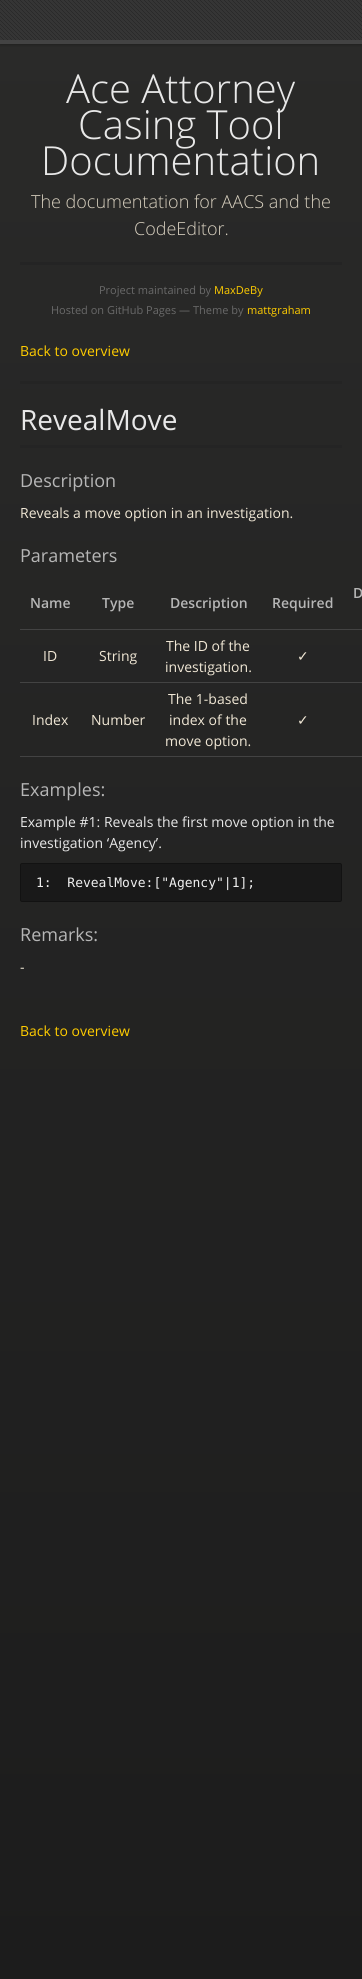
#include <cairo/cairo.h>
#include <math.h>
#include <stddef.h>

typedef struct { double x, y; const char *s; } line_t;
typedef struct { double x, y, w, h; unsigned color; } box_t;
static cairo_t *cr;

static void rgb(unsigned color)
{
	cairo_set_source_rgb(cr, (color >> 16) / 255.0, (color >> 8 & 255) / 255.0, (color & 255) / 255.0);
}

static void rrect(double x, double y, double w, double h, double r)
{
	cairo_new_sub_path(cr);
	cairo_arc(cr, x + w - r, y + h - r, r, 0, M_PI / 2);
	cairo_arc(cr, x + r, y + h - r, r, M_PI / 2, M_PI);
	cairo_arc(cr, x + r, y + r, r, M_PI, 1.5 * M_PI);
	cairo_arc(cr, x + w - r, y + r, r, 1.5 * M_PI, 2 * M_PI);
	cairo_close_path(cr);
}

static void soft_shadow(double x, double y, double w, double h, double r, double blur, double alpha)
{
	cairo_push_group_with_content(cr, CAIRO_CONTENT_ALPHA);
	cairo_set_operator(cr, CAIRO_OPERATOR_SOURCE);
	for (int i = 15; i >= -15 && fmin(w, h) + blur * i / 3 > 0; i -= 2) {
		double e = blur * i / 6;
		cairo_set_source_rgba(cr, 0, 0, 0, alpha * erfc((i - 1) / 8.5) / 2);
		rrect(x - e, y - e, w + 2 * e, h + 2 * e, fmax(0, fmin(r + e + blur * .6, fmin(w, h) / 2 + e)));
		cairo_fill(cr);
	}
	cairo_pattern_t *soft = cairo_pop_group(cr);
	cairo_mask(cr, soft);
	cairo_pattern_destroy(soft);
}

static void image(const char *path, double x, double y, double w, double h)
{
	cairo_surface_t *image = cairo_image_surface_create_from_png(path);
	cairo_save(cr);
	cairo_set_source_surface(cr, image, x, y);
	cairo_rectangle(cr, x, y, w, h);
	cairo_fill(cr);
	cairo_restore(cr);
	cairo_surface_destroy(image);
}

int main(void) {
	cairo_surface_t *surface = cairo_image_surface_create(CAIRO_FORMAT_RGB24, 362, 1979);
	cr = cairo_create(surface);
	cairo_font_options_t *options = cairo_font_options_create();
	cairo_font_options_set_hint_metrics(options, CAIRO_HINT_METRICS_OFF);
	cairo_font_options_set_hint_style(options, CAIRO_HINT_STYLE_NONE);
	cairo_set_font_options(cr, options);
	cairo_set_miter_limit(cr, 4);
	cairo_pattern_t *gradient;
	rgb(0xffffff);
	cairo_paint(cr);
	gradient = cairo_pattern_create_linear(181, 0, 181, 1979);
	cairo_pattern_add_color_stop_rgba(gradient, 0, 0.165, 0.165, 0.161, 1);
	cairo_pattern_add_color_stop_rgba(gradient, 1, 0.11, 0.11, 0.11, 1);
	cairo_set_source(cr, gradient);
	cairo_pattern_destroy(gradient);
	cairo_rectangle(cr, 0, 44, 362, 1935);
	cairo_fill(cr);
	rgb(0x000000);
	soft_shadow(0, -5, 362, 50, 0, 1.5, 0.25);
	image("img/1.png", 0, 0, 362, 40);
	{
		static const box_t items[] = {
			{0, 40, 362, 4, 0x434343},
			{20, 262, 322, 3, 0x242424},
			{20, 381, 322, 3, 0x242424},
			{20, 445, 322, 3, 0x242424},
			{20, 629, 342, 1, 0x434343},
			{20, 682, 342, 1, 0x434343},
			{20, 756, 342, 1, 0x434343},
		};
		for (size_t i = 0; i < sizeof items / sizeof *items; i++) {
			rgb(items[i].color);
			cairo_rectangle(cr, items[i].x, items[i].y, items[i].w, items[i].h);
			cairo_fill(cr);
		}
	}
	rgb(0x191919);
	rrect(20.5, 863.5, 321, 38, 1.5);
	cairo_fill_preserve(cr);
	rgb(0x121212);
	cairo_set_line_width(cr, 1);
	cairo_stroke(cr);
	cairo_select_font_face(cr, "Open Sans Light", CAIRO_FONT_SLANT_NORMAL, CAIRO_FONT_WEIGHT_NORMAL);
	cairo_set_font_size(cr, 40);
	rgb(0xe8e8e8);
	{
		static const line_t items[] = {
			{66, 103, "Ace Attorney"},
			{78, 139, "Casing Tool"},
			{41, 175, "Documentation"},
		};
		for (size_t i = 0; i < sizeof items / sizeof *items; i++) {
			cairo_move_to(cr, items[i].x, items[i].y);
			cairo_show_text(cr, items[i].s);
		}
	}
	cairo_set_font_size(cr, 18);
	rgb(0xd7cfbe);
	cairo_move_to(cr, 31, 208);
	cairo_show_text(cr, "The documentation for AACS and the");
	cairo_move_to(cr, 134, 235);
	cairo_show_text(cr, "CodeEditor.");
	cairo_select_font_face(cr, "Open Sans", CAIRO_FONT_SLANT_NORMAL, CAIRO_FONT_WEIGHT_NORMAL);
	cairo_set_font_size(cr, 11);
	rgb(0x696969);
	cairo_move_to(cr, 99, 294);
	cairo_show_text(cr, "Project maintained by");
	rgb(0xffcc00);
	cairo_move_to(cr, 214, 294);
	cairo_show_text(cr, "MaxDeBy");
	rgb(0x696969);
	cairo_move_to(cr, 51, 314);
	cairo_show_text(cr, "Hosted on GitHub Pages — Theme by");
	rgb(0xffcc00);
	cairo_move_to(cr, 247, 314);
	cairo_show_text(cr, "mattgraham");
	cairo_set_font_size(cr, 14);
	cairo_move_to(cr, 20, 356);
	cairo_show_text(cr, "Back to overview");
	cairo_set_font_size(cr, 28);
	rgb(0xe8e8e8);
	cairo_move_to(cr, 20, 430);
	cairo_show_text(cr, "RevealMove");
	cairo_set_font_size(cr, 18);
	rgb(0xb6b6b6);
	cairo_move_to(cr, 20, 487);
	cairo_show_text(cr, "Description");
	cairo_set_font_size(cr, 14);
	rgb(0xf0e7d5);
	cairo_move_to(cr, 20, 518);
	cairo_show_text(cr, "Reveals a move option in an investigation.");
	cairo_set_font_size(cr, 18);
	rgb(0xb6b6b6);
	cairo_move_to(cr, 20, 562);
	cairo_show_text(cr, "Parameters");
	cairo_select_font_face(cr, "Open Sans SemiBold", CAIRO_FONT_SLANT_NORMAL, CAIRO_FONT_WEIGHT_NORMAL);
	cairo_set_font_size(cr, 14);
	{
		static const line_t items[] = {
			{353, 598, "D"},
			{30, 608, "Name"},
			{102, 608, "Type"},
			{170, 608, "Description"},
			{272, 608, "Required"},
		};
		for (size_t i = 0; i < sizeof items / sizeof *items; i++) {
			cairo_move_to(cr, items[i].x, items[i].y);
			cairo_show_text(cr, items[i].s);
		}
	}
	cairo_select_font_face(cr, "Open Sans", CAIRO_FONT_SLANT_NORMAL, CAIRO_FONT_WEIGHT_NORMAL);
	rgb(0xf0e7d5);
	{
		static const line_t items[] = {
			{43, 661, "ID"},
			{99, 661, "String"},
			{166, 651, "The ID of the"},
			{165, 672, "investigation."},
		};
		for (size_t i = 0; i < sizeof items / sizeof *items; i++) {
			cairo_move_to(cr, items[i].x, items[i].y);
			cairo_show_text(cr, items[i].s);
		}
	}
	cairo_select_font_face(cr, "DejaVu Sans", CAIRO_FONT_SLANT_NORMAL, CAIRO_FONT_WEIGHT_NORMAL);
	cairo_move_to(cr, 297, 661);
	cairo_show_text(cr, "✓");
	cairo_select_font_face(cr, "Open Sans", CAIRO_FONT_SLANT_NORMAL, CAIRO_FONT_WEIGHT_NORMAL);
	{
		static const line_t items[] = {
			{32, 725, "Index"},
			{91, 725, "Number"},
			{168, 704, "The 1-based"},
			{169, 725, "index of the"},
			{165, 746, "move option."},
		};
		for (size_t i = 0; i < sizeof items / sizeof *items; i++) {
			cairo_move_to(cr, items[i].x, items[i].y);
			cairo_show_text(cr, items[i].s);
		}
	}
	cairo_select_font_face(cr, "DejaVu Sans", CAIRO_FONT_SLANT_NORMAL, CAIRO_FONT_WEIGHT_NORMAL);
	cairo_move_to(cr, 297, 725);
	cairo_show_text(cr, "✓");
	cairo_select_font_face(cr, "Open Sans", CAIRO_FONT_SLANT_NORMAL, CAIRO_FONT_WEIGHT_NORMAL);
	cairo_set_font_size(cr, 18);
	rgb(0xb6b6b6);
	cairo_move_to(cr, 20, 796);
	cairo_show_text(cr, "Examples:");
	cairo_set_font_size(cr, 14);
	rgb(0xe8e8e8);
	cairo_move_to(cr, 20, 827);
	cairo_show_text(cr, "Example #1: Reveals the first move option in the");
	cairo_move_to(cr, 20, 848);
	cairo_show_text(cr, "investigation ‘Agency’.");
	cairo_select_font_face(cr, "DejaVu Sans Mono", CAIRO_FONT_SLANT_NORMAL, CAIRO_FONT_WEIGHT_NORMAL);
	cairo_set_font_size(cr, 13);
	rgb(0xefefef);
	cairo_move_to(cr, 36, 887);
	cairo_show_text(cr, "1:  RevealMove:[\"Agency\"|1];");
	cairo_select_font_face(cr, "Open Sans", CAIRO_FONT_SLANT_NORMAL, CAIRO_FONT_WEIGHT_NORMAL);
	cairo_set_font_size(cr, 18);
	rgb(0xb6b6b6);
	cairo_move_to(cr, 20, 941);
	cairo_show_text(cr, "Remarks:");
	cairo_set_font_size(cr, 14);
	rgb(0xf0e7d5);
	cairo_move_to(cr, 20, 972);
	cairo_show_text(cr, "-");
	rgb(0xffcc00);
	cairo_move_to(cr, 20, 1036);
	cairo_show_text(cr, "Back to overview");
	cairo_surface_write_to_png(surface, "page.png");
	cairo_font_options_destroy(options);
	cairo_destroy(cr);
	cairo_surface_destroy(surface);
	return 0;
}
